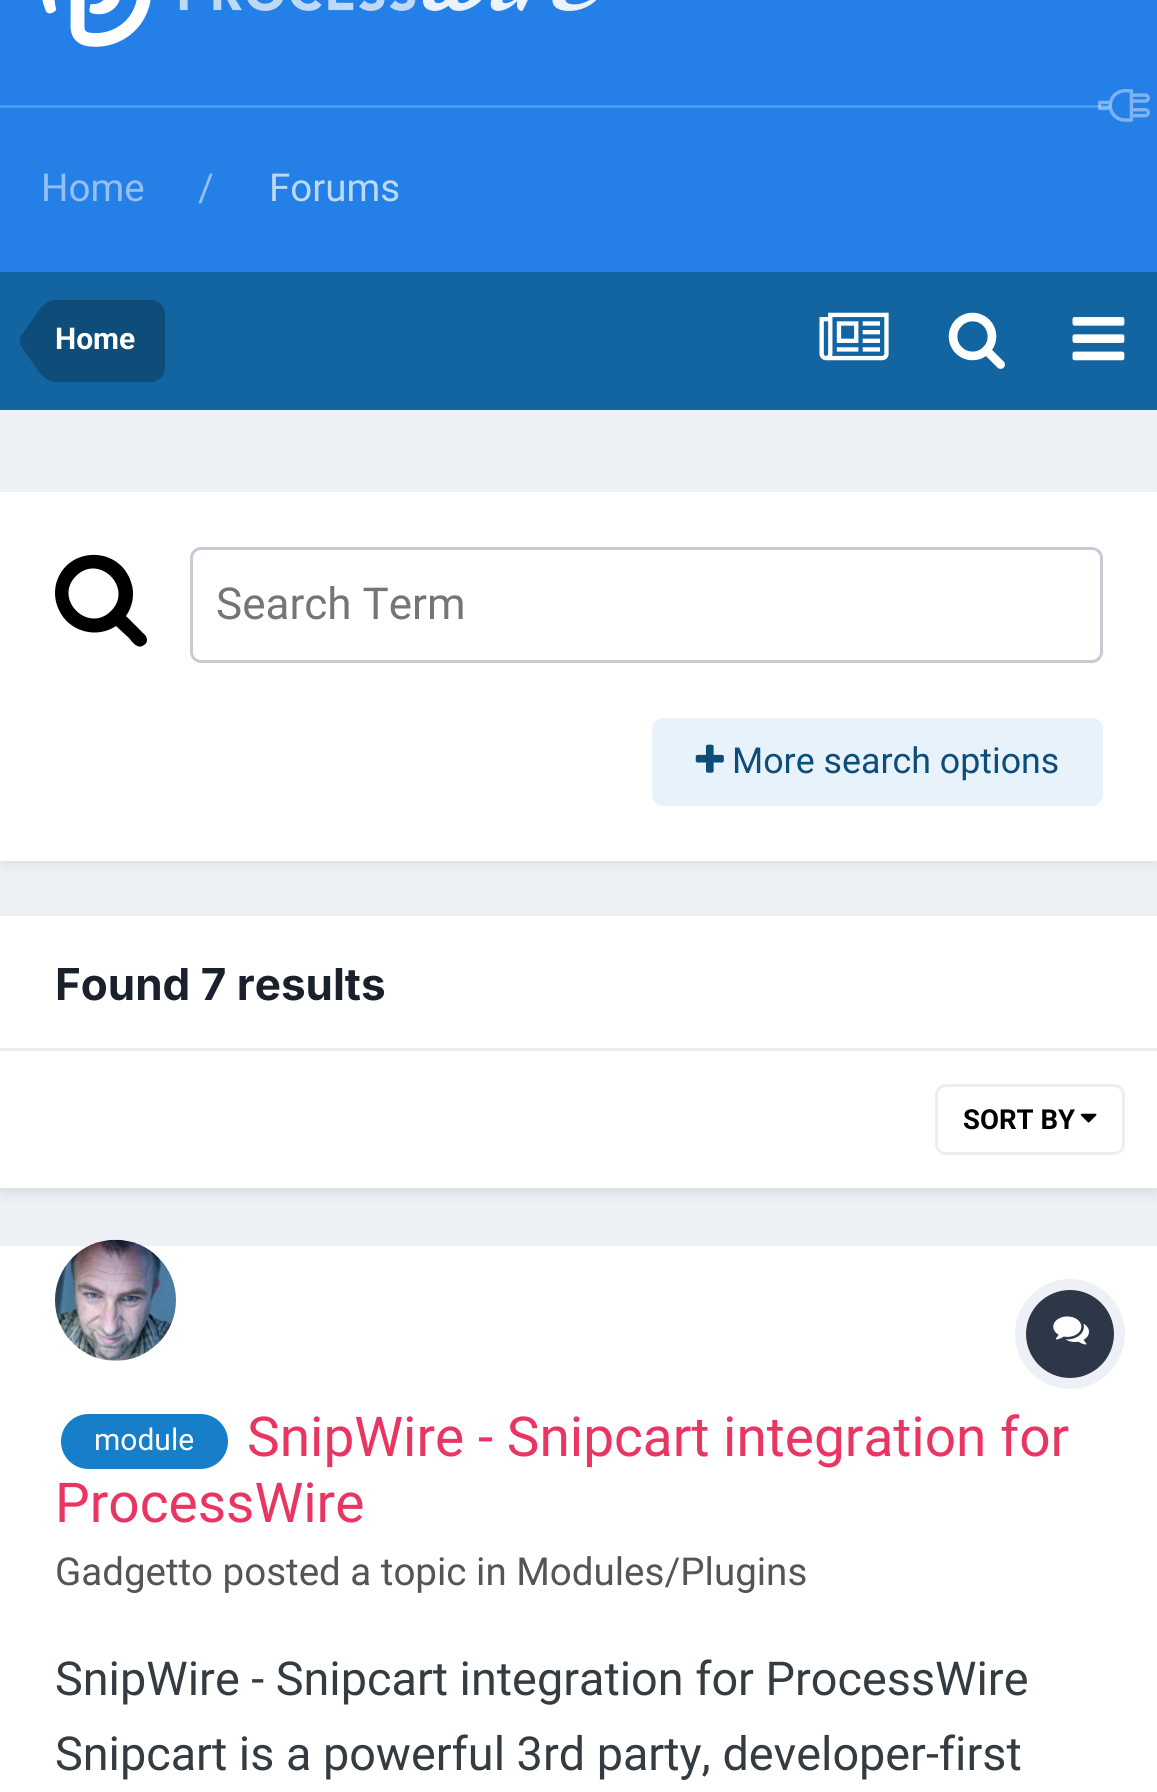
#include <cairo/cairo.h>
#include <math.h>
#include <stddef.h>

typedef struct { double x, y, w, h; unsigned color; } box_t;
static cairo_t *cr;

static void rgb(unsigned color)
{
	cairo_set_source_rgb(cr, (color >> 16) / 255.0, (color >> 8 & 255) / 255.0, (color & 255) / 255.0);
}

static void rrect(double x, double y, double w, double h, double r)
{
	cairo_new_sub_path(cr);
	cairo_arc(cr, x + w - r, y + h - r, r, 0, M_PI / 2);
	cairo_arc(cr, x + r, y + h - r, r, M_PI / 2, M_PI);
	cairo_arc(cr, x + r, y + r, r, M_PI, 1.5 * M_PI);
	cairo_arc(cr, x + w - r, y + r, r, 1.5 * M_PI, 2 * M_PI);
	cairo_close_path(cr);
}

static void soft_shadow(double x, double y, double w, double h, double r, double blur, double alpha)
{
	cairo_push_group_with_content(cr, CAIRO_CONTENT_ALPHA);
	cairo_set_operator(cr, CAIRO_OPERATOR_SOURCE);
	for (int i = 15; i >= -15 && fmin(w, h) + blur * i / 3 > 0; i -= 2) {
		double e = blur * i / 6;
		cairo_set_source_rgba(cr, 0, 0, 0, alpha * erfc((i - 1) / 8.5) / 2);
		rrect(x - e, y - e, w + 2 * e, h + 2 * e, fmax(0, fmin(r + e + blur * .6, fmin(w, h) / 2 + e)));
		cairo_fill(cr);
	}
	cairo_pattern_t *soft = cairo_pop_group(cr);
	cairo_mask(cr, soft);
	cairo_pattern_destroy(soft);
}

static void image(const char *path, double x, double y, double w, double h)
{
	cairo_surface_t *image = cairo_image_surface_create_from_png(path);
	cairo_save(cr);
	cairo_set_source_surface(cr, image, x, y);
	cairo_rectangle(cr, x, y, w, h);
	cairo_fill(cr);
	cairo_restore(cr);
	cairo_surface_destroy(image);
}

int main(void) {
	cairo_surface_t *surface = cairo_image_surface_create(CAIRO_FORMAT_RGB24, 1157, 1792);
	cr = cairo_create(surface);
	cairo_font_options_t *options = cairo_font_options_create();
	cairo_font_options_set_hint_metrics(options, CAIRO_HINT_METRICS_OFF);
	cairo_font_options_set_hint_style(options, CAIRO_HINT_STYLE_NONE);
	cairo_set_font_options(cr, options);
	cairo_set_miter_limit(cr, 4);
	rgb(0xedf0f4);
	cairo_paint(cr);
	rgb(0x2480e6);
	cairo_rectangle(cr, 0, 0, 1157, 105);
	cairo_fill(cr);
	image("img/1.png", 42, 0, 109, 47);
	image("img/2.png", 179, 0, 418, 11);
	{
		static const box_t items[] = {
			{0, 105, 1111, 3, 0x5099eb},
			{1111, 105, 46, 3, 0x2480e6},
			{0, 108, 1157, 164, 0x2480e6},
		};
		for (size_t i = 0; i < sizeof items / sizeof *items; i++) {
			rgb(items[i].color);
			cairo_rectangle(cr, items[i].x, items[i].y, items[i].w, items[i].h);
			cairo_fill(cr);
		}
	}
	image("img/3.png", 1098, 89, 52, 33);
	rgb(0x1265a1);
	cairo_rectangle(cr, 0, 272, 1157, 138);
	cairo_fill(cr);
	rgb(0x0e4c79);
	cairo_new_path(cr);
	cairo_move_to(cr, 55, 300);
	cairo_line_to(cr, 151, 300);
	cairo_curve_to(cr, 158.5, 300, 165, 306.5, 165, 314);
	cairo_line_to(cr, 165, 368);
	cairo_curve_to(cr, 165, 375.5, 158.5, 382, 151, 382);
	cairo_line_to(cr, 55, 382);
	cairo_close_path(cr);
	cairo_fill(cr);
	cairo_new_path(cr);
	cairo_move_to(cr, 55, 341);
	cairo_line_to(cr, 55, 382);
	cairo_curve_to(cr, 49, 382, 44, 378, 39, 372);
	cairo_line_to(cr, 21, 346);
	cairo_curve_to(cr, 20, 345, 20, 343, 20, 341);
	cairo_close_path(cr);
	cairo_fill(cr);
	cairo_new_path(cr);
	cairo_move_to(cr, 55, 341);
	cairo_line_to(cr, 20, 341);
	cairo_curve_to(cr, 20, 339, 20, 337, 21, 336);
	cairo_line_to(cr, 39, 310);
	cairo_curve_to(cr, 44, 304, 49, 300, 55, 300);
	cairo_close_path(cr);
	cairo_fill(cr);
	image("img/4.png", 819, 312, 70, 49);
	image("img/5.png", 948, 312, 57, 57);
	image("img/6.png", 1072, 317, 53, 44);
	rgb(0x2d3748);
	soft_shadow(3, 501, 1152, 363, 0, 5.5, 0.1);
	rgb(0xffffff);
	cairo_rectangle(cr, 0, 492, 1157, 369);
	cairo_fill(cr);
	rgb(0x000000);
	cairo_new_path(cr);
	cairo_move_to(cr, 111, 611);
	cairo_curve_to(cr, 134, 588, 99, 553, 76, 576);
	cairo_curve_to(cr, 53, 599, 88, 634, 111, 611);
	cairo_close_path(cr);
	cairo_move_to(cr, 147, 640);
	cairo_curve_to(cr, 147, 642, 146, 644, 144, 645);
	cairo_curve_to(cr, 138, 650, 132, 642, 129, 638);
	cairo_line_to(cr, 116, 626);
	cairo_curve_to(cr, 97, 639, 69, 632, 59, 610);
	cairo_curve_to(cr, 55, 602, 54, 593, 56, 584);
	cairo_curve_to(cr, 66, 546, 119, 545, 131, 582);
	cairo_curve_to(cr, 135, 593, 133, 606, 126, 616);
	cairo_line_to(cr, 145, 635);
	cairo_curve_to(cr, 146, 636, 147, 638, 147, 640);
	cairo_close_path(cr);
	cairo_fill(cr);
	rrect(191.5, 548.5, 910, 113, 9.5);
	rgb(0xc6ccd5);
	cairo_set_line_width(cr, 3);
	cairo_stroke(cr);
	rgb(0xe8f2fa);
	rrect(652, 718, 451, 88, 11);
	cairo_fill(cr);
	image("img/7.png", 695, 744, 29, 29);
	rgb(0x2d3748);
	soft_shadow(3, 924, 1152, 270, 0, 5.5, 0.1);
	{
		static const box_t items[] = {
			{0, 916, 1157, 272, 0xffffff},
			{0, 1048, 1157, 3, 0xeaecef},
			{0, 1188, 1157, 3, 0xe1e2e3},
		};
		for (size_t i = 0; i < sizeof items / sizeof *items; i++) {
			rgb(items[i].color);
			cairo_rectangle(cr, items[i].x, items[i].y, items[i].w, items[i].h);
			cairo_fill(cr);
		}
	}
	image("img/8.png", 1080, 1113, 17, 10);
	rrect(936.5, 1085.5, 187, 68, 9.5);
	rgb(0xeeeeee);
	cairo_stroke(cr);
	rgb(0xffffff);
	cairo_rectangle(cr, 0, 1246, 1157, 546);
	cairo_fill(cr);
	cairo_arc(cr, 115.5, 1300.5, 60.5, 0, 2 * M_PI);
	cairo_fill(cr);
	image("img/9.png", 55, 1239, 121, 122);
	cairo_arc(cr, 1070, 1334, 49.5, 0, 2 * M_PI);
	rgb(0xedf0f4);
	cairo_set_line_width(cr, 11);
	cairo_stroke(cr);
	rgb(0x2d3748);
	cairo_arc(cr, 1070, 1334, 44, 0, 2 * M_PI);
	cairo_fill(cr);
	image("img/10.png", 1053, 1316, 36, 29);
	rgb(0x177ec9);
	rrect(61, 1414, 167, 55, 27.5);
	cairo_fill(cr);
	cairo_select_font_face(cr, "Roboto", CAIRO_FONT_SLANT_NORMAL, CAIRO_FONT_WEIGHT_NORMAL);
	cairo_set_font_size(cr, 38.5);
	rgb(0x92c0f3);
	cairo_move_to(cr, 41, 201);
	cairo_show_text(cr, "Home");
	cairo_move_to(cr, 198, 201);
	cairo_show_text(cr, "/");
	rgb(0xbdd9f8);
	cairo_move_to(cr, 269, 201);
	cairo_show_text(cr, "Forums");
	cairo_select_font_face(cr, "Roboto", CAIRO_FONT_SLANT_NORMAL, CAIRO_FONT_WEIGHT_BOLD);
	cairo_set_font_size(cr, 30);
	rgb(0xffffff);
	cairo_move_to(cr, 55, 349);
	cairo_show_text(cr, "Home");
	cairo_select_font_face(cr, "Roboto", CAIRO_FONT_SLANT_NORMAL, CAIRO_FONT_WEIGHT_NORMAL);
	cairo_set_font_size(cr, 44);
	rgb(0x757575);
	cairo_move_to(cr, 216, 619);
	cairo_show_text(cr, "Search Term");
	cairo_set_font_size(cr, 35.75);
	rgb(0x0e4c79);
	cairo_move_to(cr, 732, 773);
	cairo_show_text(cr, "More search options");
	cairo_select_font_face(cr, "Inter", CAIRO_FONT_SLANT_NORMAL, CAIRO_FONT_WEIGHT_BOLD);
	cairo_set_font_size(cr, 44);
	rgb(0x1a202c);
	cairo_move_to(cr, 55, 1000);
	cairo_show_text(cr, "Found 7 results");
	cairo_select_font_face(cr, "Roboto", CAIRO_FONT_SLANT_NORMAL, CAIRO_FONT_WEIGHT_BOLD);
	cairo_set_font_size(cr, 27.5);
	rgb(0x000000);
	cairo_move_to(cr, 963, 1129);
	cairo_show_text(cr, "SORT BY");
	cairo_select_font_face(cr, "Roboto", CAIRO_FONT_SLANT_NORMAL, CAIRO_FONT_WEIGHT_NORMAL);
	cairo_set_font_size(cr, 30);
	rgb(0xffffff);
	cairo_move_to(cr, 94, 1450);
	cairo_show_text(cr, "module");
	cairo_set_font_size(cr, 55);
	rgb(0xe83561);
	cairo_move_to(cr, 247, 1456);
	cairo_show_text(cr, "SnipWire - Snipcart integration for");
	cairo_move_to(cr, 55, 1522);
	cairo_show_text(cr, "ProcessWire");
	cairo_set_font_size(cr, 38.5);
	rgb(0x555555);
	cairo_move_to(cr, 55, 1585);
	cairo_show_text(cr, "Gadgetto posted a topic in Modules/Plugins");
	cairo_set_font_size(cr, 46.75);
	rgb(0x353c41);
	cairo_move_to(cr, 55, 1695);
	cairo_show_text(cr, "SnipWire - Snipcart integration for ProcessWire");
	cairo_move_to(cr, 55, 1770);
	cairo_show_text(cr, "Snipcart is a powerful 3rd party, developer-first");
	cairo_surface_write_to_png(surface, "page.png");
	cairo_font_options_destroy(options);
	cairo_destroy(cr);
	cairo_surface_destroy(surface);
	return 0;
}
